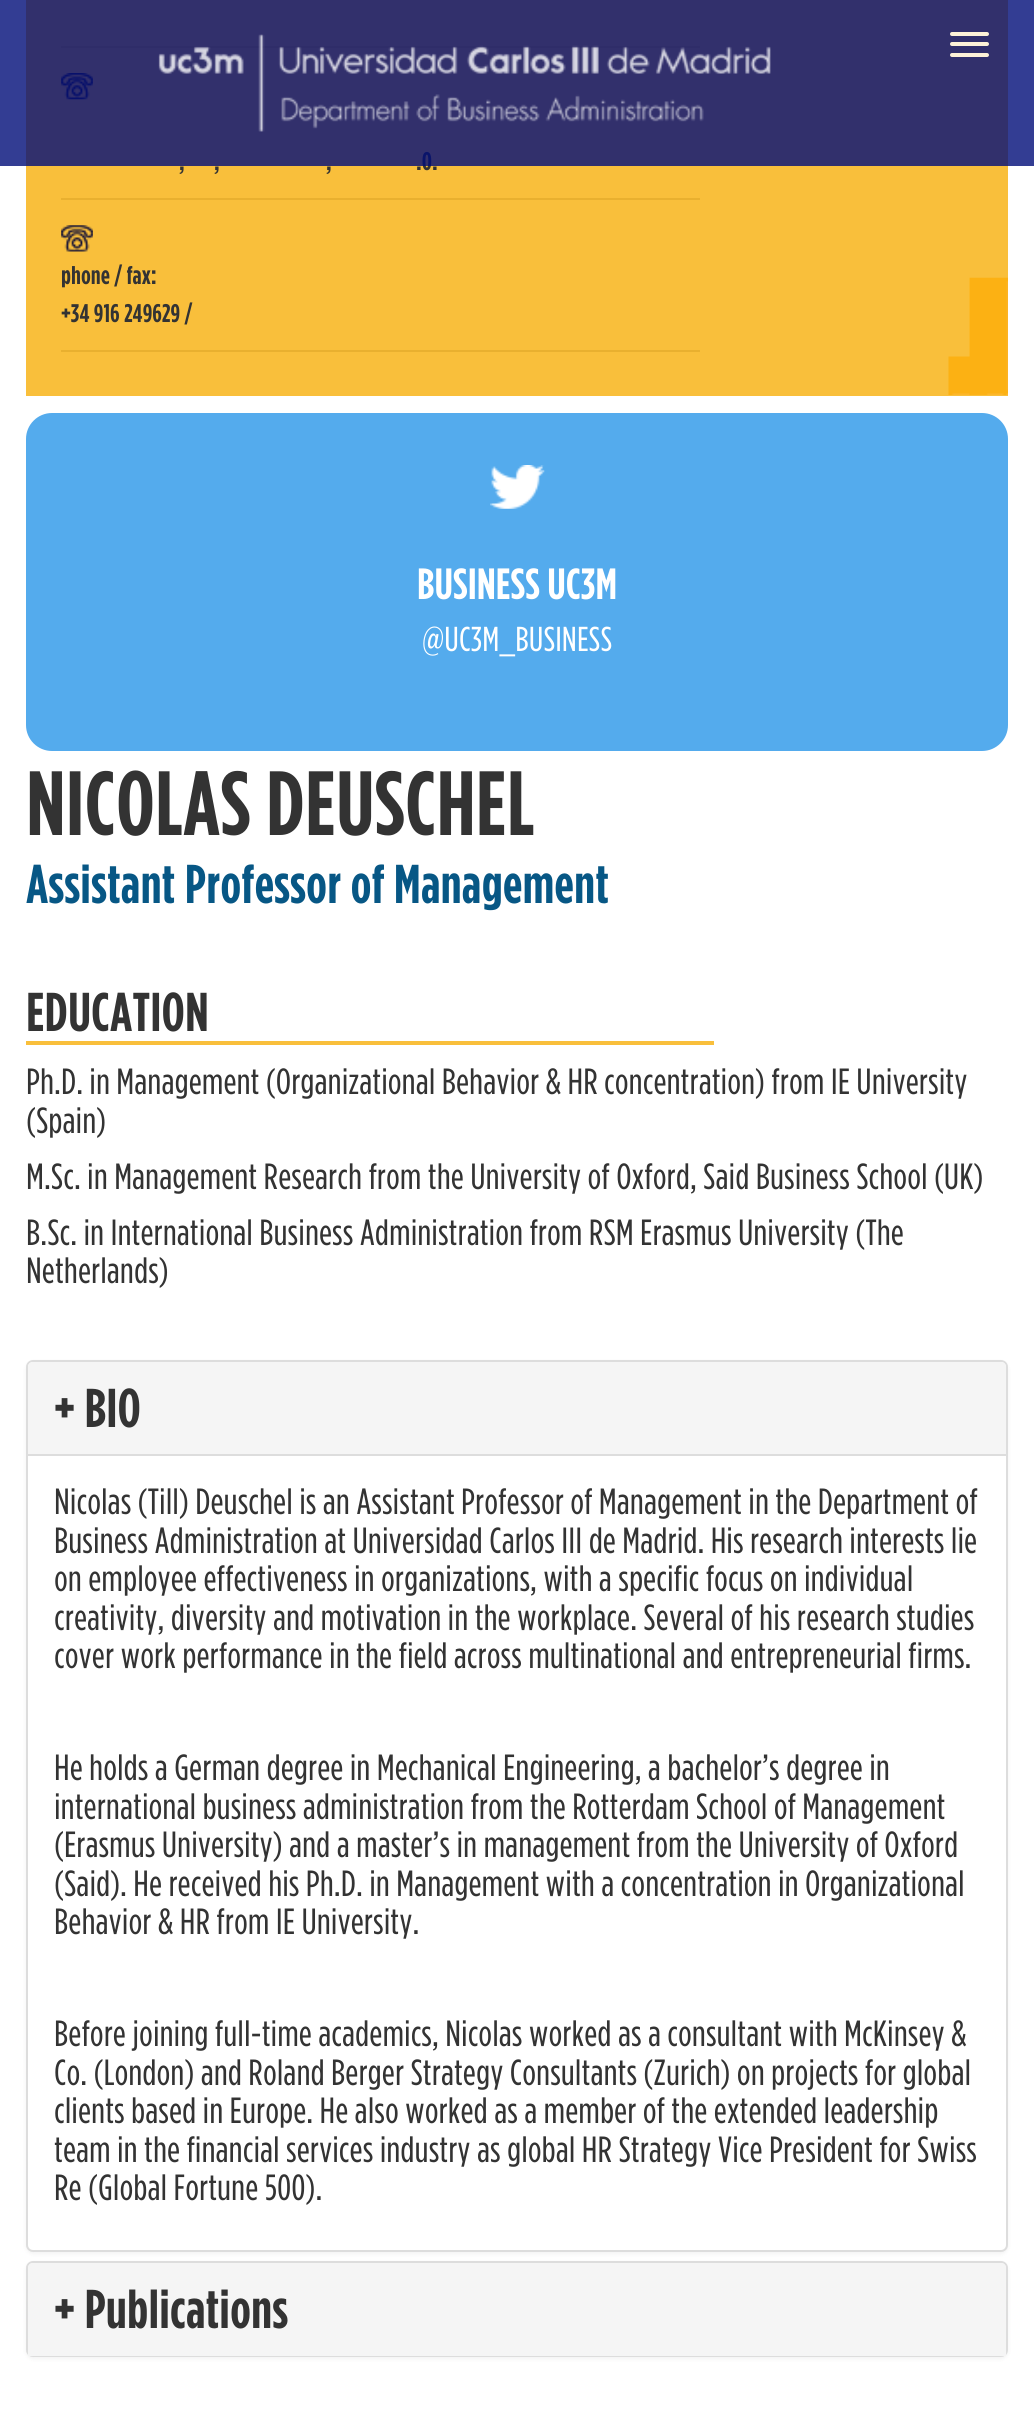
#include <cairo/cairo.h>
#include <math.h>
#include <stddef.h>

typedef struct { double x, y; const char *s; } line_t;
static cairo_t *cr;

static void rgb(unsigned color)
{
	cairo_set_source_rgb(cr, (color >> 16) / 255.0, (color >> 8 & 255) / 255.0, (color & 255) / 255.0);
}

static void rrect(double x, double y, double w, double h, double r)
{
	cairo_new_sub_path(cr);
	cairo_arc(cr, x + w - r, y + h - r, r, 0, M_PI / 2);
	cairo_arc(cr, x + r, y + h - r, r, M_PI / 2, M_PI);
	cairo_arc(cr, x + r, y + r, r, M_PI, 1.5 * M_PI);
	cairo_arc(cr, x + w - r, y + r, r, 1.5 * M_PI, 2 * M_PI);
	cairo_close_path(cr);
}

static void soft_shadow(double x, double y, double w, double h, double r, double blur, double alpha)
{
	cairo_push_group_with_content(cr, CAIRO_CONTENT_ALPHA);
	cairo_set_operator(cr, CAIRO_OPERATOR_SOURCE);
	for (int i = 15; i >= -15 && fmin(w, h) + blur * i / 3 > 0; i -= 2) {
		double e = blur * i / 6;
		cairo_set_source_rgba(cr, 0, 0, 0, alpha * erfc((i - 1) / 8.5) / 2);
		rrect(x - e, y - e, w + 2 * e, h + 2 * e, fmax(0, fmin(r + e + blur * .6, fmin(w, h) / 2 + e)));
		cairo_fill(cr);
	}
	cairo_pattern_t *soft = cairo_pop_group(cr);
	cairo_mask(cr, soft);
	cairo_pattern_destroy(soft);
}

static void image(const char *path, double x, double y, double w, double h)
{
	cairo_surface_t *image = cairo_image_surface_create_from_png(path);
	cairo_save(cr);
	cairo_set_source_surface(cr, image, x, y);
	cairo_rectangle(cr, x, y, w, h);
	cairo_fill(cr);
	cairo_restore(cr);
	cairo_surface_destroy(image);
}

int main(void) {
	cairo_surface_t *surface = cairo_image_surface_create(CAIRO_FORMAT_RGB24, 1034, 2411);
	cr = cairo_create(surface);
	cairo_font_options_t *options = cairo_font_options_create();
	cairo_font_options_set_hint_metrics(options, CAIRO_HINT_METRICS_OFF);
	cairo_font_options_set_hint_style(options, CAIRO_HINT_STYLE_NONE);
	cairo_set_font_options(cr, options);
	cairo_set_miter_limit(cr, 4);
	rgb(0xffffff);
	cairo_paint(cr);
	rgb(0xf9bf3b);
	cairo_rectangle(cr, 26, 0, 982, 396);
	cairo_fill(cr);
	image("img/2.png", 948, 277, 60, 118);
	rgb(0xe9b02f);
	cairo_rectangle(cr, 61, 46, 639, 2);
	cairo_fill(cr);
	image("img/3.png", 61, 73, 32, 27);
	cairo_rectangle(cr, 61, 198, 639, 2);
	cairo_fill(cr);
	image("img/4.png", 61, 225, 32, 27);
	cairo_rectangle(cr, 61, 350, 639, 2);
	cairo_fill(cr);
	rgb(0x54abed);
	rrect(26, 413, 982, 338, 26);
	cairo_fill(cr);
	image("img/5.png", 490, 465, 55, 44);
	rgb(0xf9bf3b);
	cairo_rectangle(cr, 26, 1041, 688, 4);
	cairo_fill(cr);
	rgb(0x000000);
	soft_shadow(26, 1362, 982, 892, 7, 2, 0.05);
	rgb(0xffffff);
	rrect(27, 1361, 980, 890, 6);
	cairo_fill_preserve(cr);
	rgb(0xdddddd);
	cairo_stroke(cr);
	rgb(0xf5f5f5);
	cairo_new_path(cr);
	cairo_move_to(cr, 33, 1362);
	cairo_line_to(cr, 1001, 1362);
	cairo_curve_to(cr, 1004, 1362, 1006, 1364, 1006, 1367);
	cairo_line_to(cr, 1006, 1454);
	cairo_line_to(cr, 28, 1454);
	cairo_line_to(cr, 28, 1367);
	cairo_curve_to(cr, 28, 1364, 30, 1362, 33, 1362);
	cairo_close_path(cr);
	cairo_fill(cr);
	rgb(0xdddddd);
	cairo_rectangle(cr, 28, 1454, 978, 2);
	cairo_fill(cr);
	rgb(0x000000);
	soft_shadow(26, 2263, 982, 96, 7, 2, 0.05);
	rrect(27, 2262, 980, 94, 6);
	rgb(0xdddddd);
	cairo_stroke(cr);
	rgb(0xf5f5f5);
	cairo_new_path(cr);
	cairo_move_to(cr, 33, 2263);
	cairo_line_to(cr, 1001, 2263);
	cairo_curve_to(cr, 1004, 2263, 1006, 2265, 1006, 2268);
	cairo_line_to(cr, 1006, 2356);
	cairo_line_to(cr, 28, 2356);
	cairo_line_to(cr, 28, 2268);
	cairo_curve_to(cr, 28, 2265, 30, 2263, 33, 2263);
	cairo_close_path(cr);
	cairo_fill(cr);
	cairo_select_font_face(cr, "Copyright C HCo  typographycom", CAIRO_FONT_SLANT_NORMAL, CAIRO_FONT_WEIGHT_NORMAL);
	cairo_set_font_size(cr, 24.5);
	rgb(0x333333);
	{
		static const line_t items[] = {
			{179, 170, ","},
			{214, 170, ","},
			{326, 170, ","},
			{416, 170, ".0."},
		};
		for (size_t i = 0; i < sizeof items / sizeof *items; i++) {
			cairo_move_to(cr, items[i].x, items[i].y);
			cairo_show_text(cr, items[i].s);
		}
	}
	cairo_set_source_rgba(cr, 0, 0.051, 0.471, 0.8);
	cairo_rectangle(cr, 0, 0, 1034, 166);
	cairo_fill(cr);
	rgb(0xfef2d8);
	rrect(950, 53, 39, 4, 2);
	cairo_fill(cr);
	rrect(950, 42, 39, 4, 2);
	cairo_fill(cr);
	rrect(950, 32, 39, 4, 2);
	cairo_fill(cr);
	image("img/1.png", 158, 34, 613, 98);
	rgb(0x333333);
	cairo_move_to(cr, 61, 284);
	cairo_show_text(cr, "phone / fax:");
	cairo_move_to(cr, 61, 322);
	cairo_show_text(cr, "+34 916 249629 /");
	cairo_set_font_size(cr, 42);
	rgb(0xffffff);
	cairo_move_to(cr, 417, 599);
	cairo_show_text(cr, "BUSINESS UC3M");
	cairo_select_font_face(cr, "Copyright C HCo  typographycom Light", CAIRO_FONT_SLANT_NORMAL, CAIRO_FONT_WEIGHT_NORMAL);
	cairo_set_font_size(cr, 33.25);
	cairo_move_to(cr, 422, 651);
	cairo_show_text(cr, "@UC3M_BUSINESS");
	cairo_select_font_face(cr, "Copyright C HCo  typographycom", CAIRO_FONT_SLANT_NORMAL, CAIRO_FONT_WEIGHT_NORMAL);
	cairo_set_font_size(cr, 87.5);
	rgb(0x333333);
	cairo_move_to(cr, 26, 835);
	cairo_show_text(cr, "NICOLAS DEUSCHEL");
	cairo_set_font_size(cr, 52.5);
	rgb(0x075785);
	cairo_move_to(cr, 26, 903);
	cairo_show_text(cr, "Assistant Professor of Management");
	rgb(0x333333);
	cairo_move_to(cr, 26, 1031);
	cairo_show_text(cr, "EDUCATION");
	cairo_select_font_face(cr, "Copyright C HCo  typographycom Light", CAIRO_FONT_SLANT_NORMAL, CAIRO_FONT_WEIGHT_NORMAL);
	cairo_set_font_size(cr, 35);
	{
		static const line_t items[] = {
			{26, 1094, "Ph.D. in Management (Organizational Behavior & HR concentration) from IE University"},
			{26, 1133, "(Spain)"},
			{26, 1189, "M.Sc. in Management Research from the University of Oxford, Said Business School (UK)"},
			{26, 1245, "B.Sc. in International Business Administration from RSM Erasmus University (The"},
			{26, 1283, "Netherlands)"},
		};
		for (size_t i = 0; i < sizeof items / sizeof *items; i++) {
			cairo_move_to(cr, items[i].x, items[i].y);
			cairo_show_text(cr, items[i].s);
		}
	}
	cairo_select_font_face(cr, "Copyright C HCo  typographycom", CAIRO_FONT_SLANT_NORMAL, CAIRO_FONT_WEIGHT_NORMAL);
	cairo_set_font_size(cr, 52.5);
	cairo_move_to(cr, 54, 1427);
	cairo_show_text(cr, "+ BIO");
	cairo_select_font_face(cr, "Copyright C HCo  typographycom Light", CAIRO_FONT_SLANT_NORMAL, CAIRO_FONT_WEIGHT_NORMAL);
	cairo_set_font_size(cr, 35);
	{
		static const line_t items[] = {
			{54, 1514, "Nicolas (Till) Deuschel is an Assistant Professor of Management in the Department of"},
			{54, 1553, "Business Administration at Universidad Carlos III de Madrid. His research interests lie"},
			{54, 1591, "on employee effectiveness in organizations, with a specific focus on individual"},
			{54, 1630, "creativity, diversity and motivation in the workplace. Several of his research studies"},
			{54, 1668, "cover work performance in the field across multinational and entrepreneurial firms."},
			{54, 1780, "He holds a German degree in Mechanical Engineering, a bachelor’s degree in"},
			{54, 1819, "international business administration from the Rotterdam School of Management"},
			{54, 1857, "(Erasmus University) and a master’s in management from the University of Oxford"},
			{54, 1896, "(Said). He received his Ph.D. in Management with a concentration in Organizational"},
			{54, 1934, "Behavior & HR from IE University."},
			{54, 2046, "Before joining full-time academics, Nicolas worked as a consultant with McKinsey &"},
			{54, 2085, "Co. (London) and Roland Berger Strategy Consultants (Zurich) on projects for global"},
			{54, 2123, "clients based in Europe. He also worked as a member of the extended leadership"},
			{54, 2162, "team in the financial services industry as global HR Strategy Vice President for Swiss"},
			{54, 2200, "Re (Global Fortune 500)."},
		};
		for (size_t i = 0; i < sizeof items / sizeof *items; i++) {
			cairo_move_to(cr, items[i].x, items[i].y);
			cairo_show_text(cr, items[i].s);
		}
	}
	cairo_select_font_face(cr, "Copyright C HCo  typographycom", CAIRO_FONT_SLANT_NORMAL, CAIRO_FONT_WEIGHT_NORMAL);
	cairo_set_font_size(cr, 52.5);
	cairo_move_to(cr, 54, 2328);
	cairo_show_text(cr, "+ Publications");
	cairo_surface_write_to_png(surface, "page.png");
	cairo_font_options_destroy(options);
	cairo_destroy(cr);
	cairo_surface_destroy(surface);
	return 0;
}
